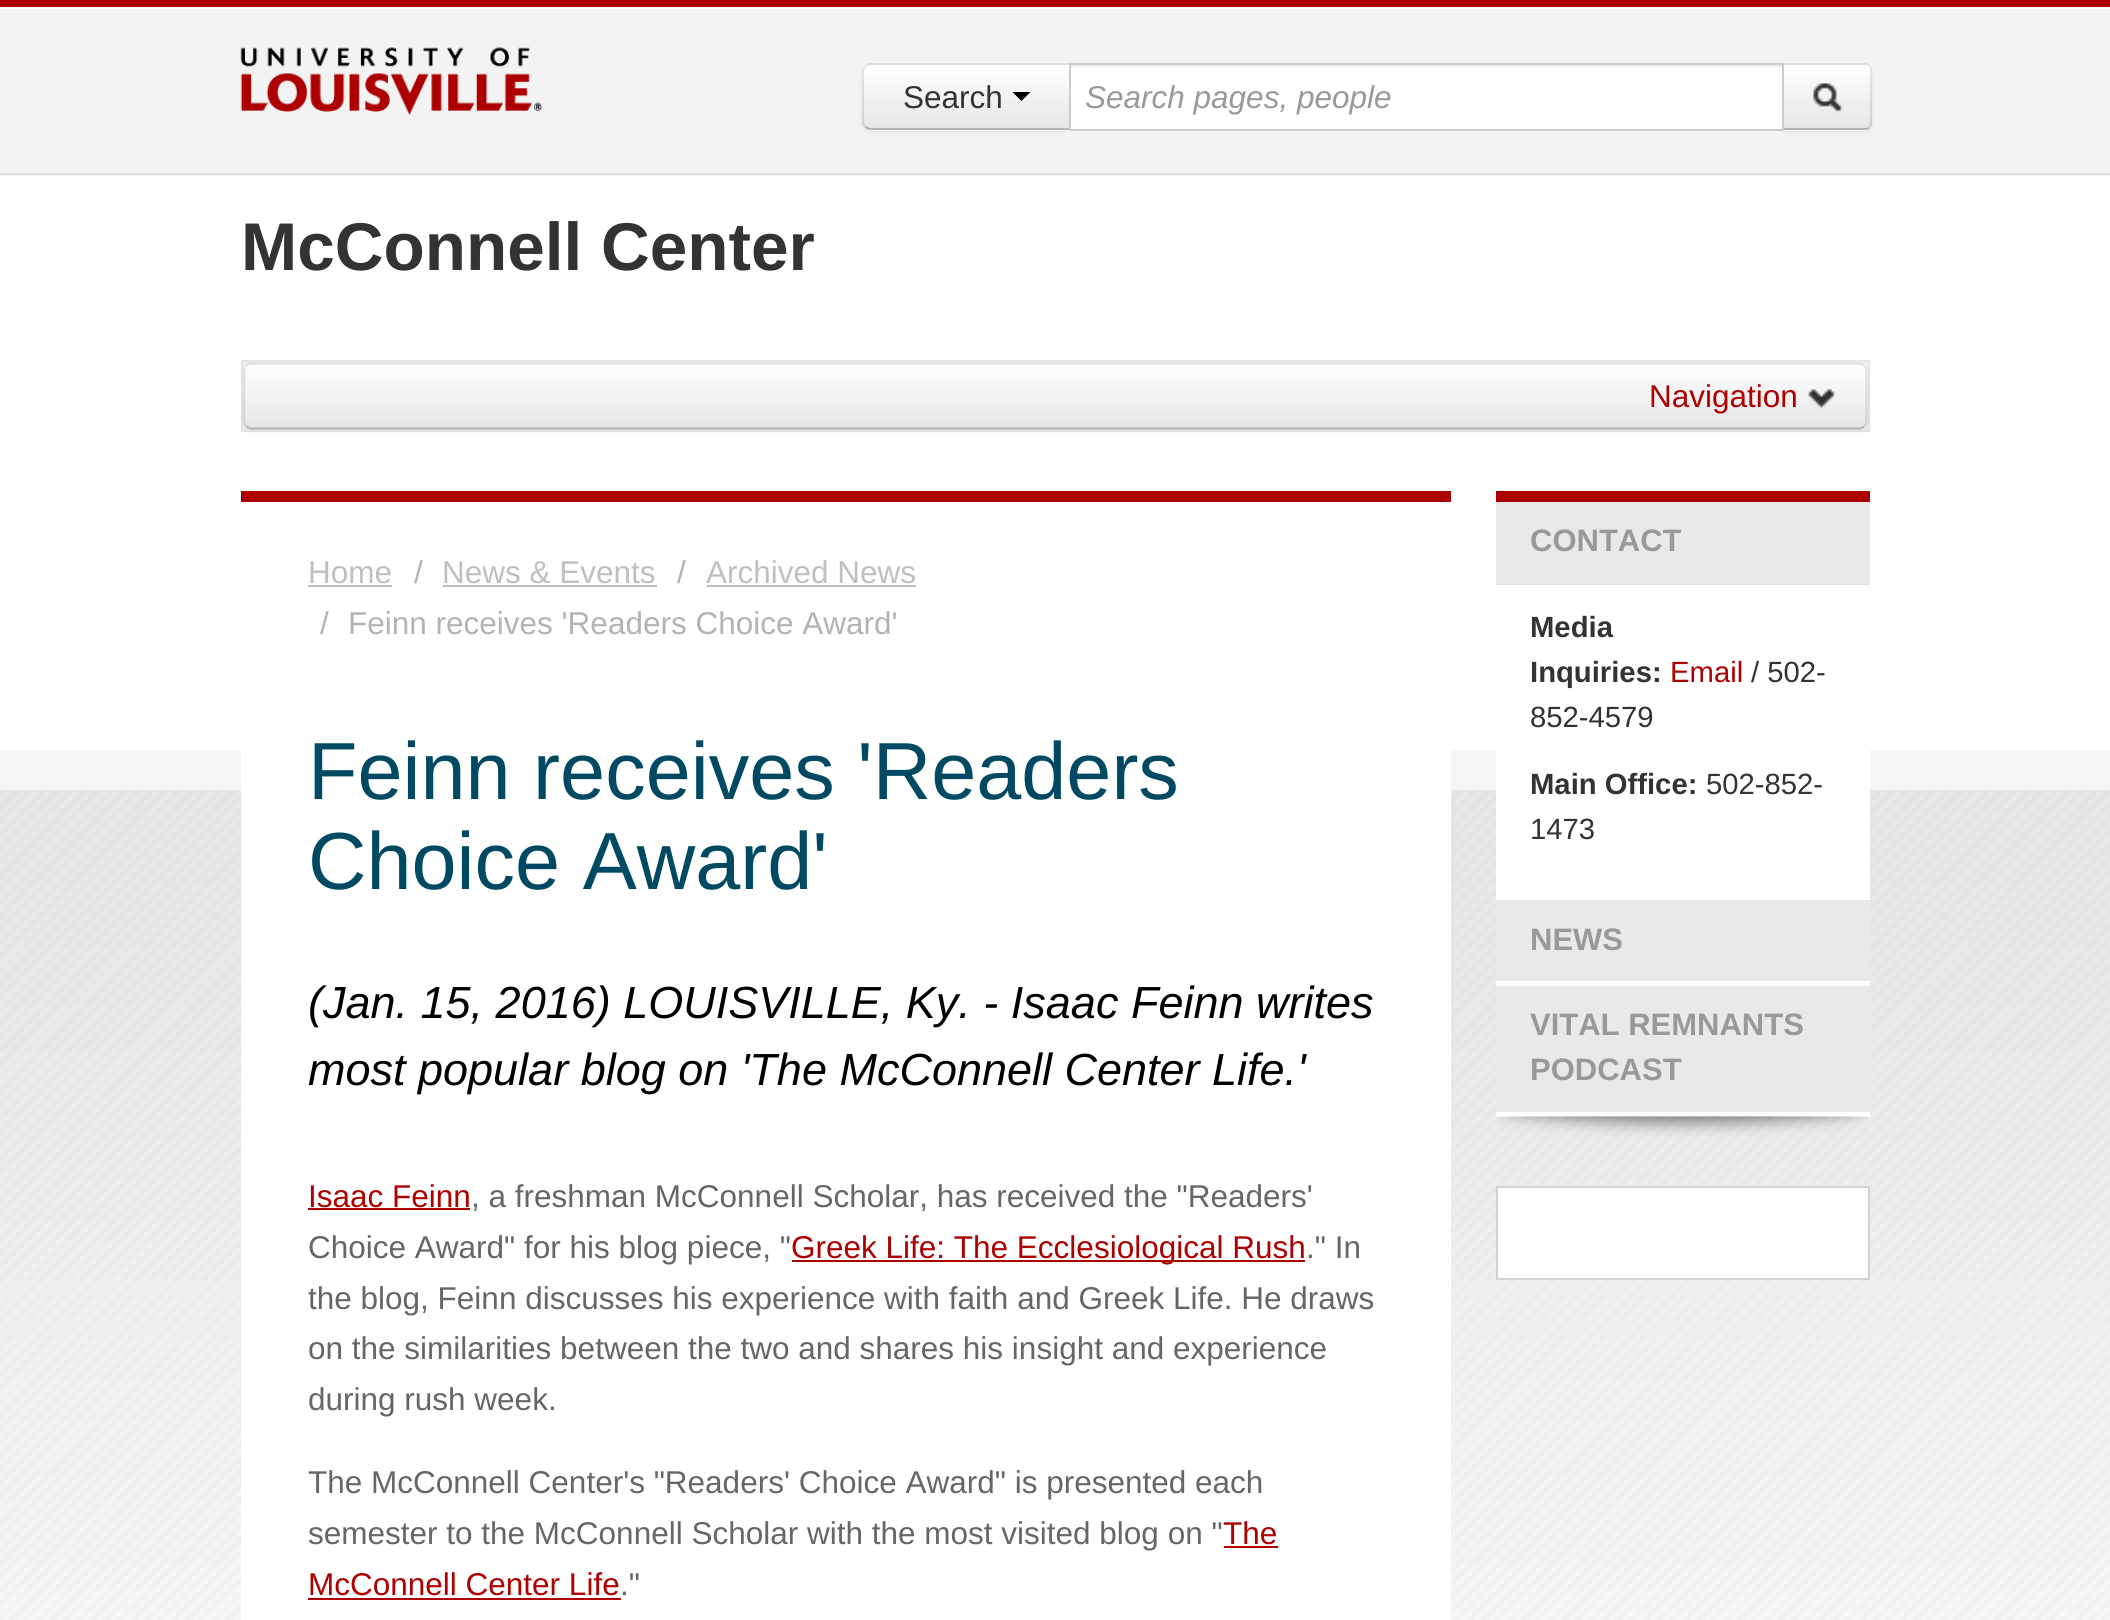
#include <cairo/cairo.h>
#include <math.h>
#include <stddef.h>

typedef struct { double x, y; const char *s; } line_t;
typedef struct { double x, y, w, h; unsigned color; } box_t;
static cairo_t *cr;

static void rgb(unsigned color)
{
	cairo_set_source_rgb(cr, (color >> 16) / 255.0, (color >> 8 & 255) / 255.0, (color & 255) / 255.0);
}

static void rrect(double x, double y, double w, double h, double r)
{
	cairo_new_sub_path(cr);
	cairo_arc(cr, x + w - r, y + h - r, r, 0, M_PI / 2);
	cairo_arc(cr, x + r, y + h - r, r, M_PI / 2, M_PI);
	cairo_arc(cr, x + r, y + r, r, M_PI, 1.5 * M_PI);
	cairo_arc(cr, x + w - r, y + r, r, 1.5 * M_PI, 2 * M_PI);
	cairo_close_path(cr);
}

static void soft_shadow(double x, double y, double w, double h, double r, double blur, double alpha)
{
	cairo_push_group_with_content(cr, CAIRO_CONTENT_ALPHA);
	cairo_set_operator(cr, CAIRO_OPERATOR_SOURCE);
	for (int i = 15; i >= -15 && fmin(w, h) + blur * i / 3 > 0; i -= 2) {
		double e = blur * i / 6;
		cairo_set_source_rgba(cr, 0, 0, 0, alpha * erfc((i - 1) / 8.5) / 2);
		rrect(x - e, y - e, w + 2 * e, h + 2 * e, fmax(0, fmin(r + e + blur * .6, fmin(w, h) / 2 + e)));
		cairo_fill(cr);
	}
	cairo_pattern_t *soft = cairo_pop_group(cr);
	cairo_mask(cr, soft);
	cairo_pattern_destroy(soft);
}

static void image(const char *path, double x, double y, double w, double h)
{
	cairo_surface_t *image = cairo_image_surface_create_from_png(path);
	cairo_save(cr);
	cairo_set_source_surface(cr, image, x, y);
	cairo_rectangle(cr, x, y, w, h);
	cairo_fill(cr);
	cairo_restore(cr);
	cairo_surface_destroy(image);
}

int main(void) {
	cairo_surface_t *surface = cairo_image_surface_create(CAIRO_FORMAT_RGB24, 2110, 1620);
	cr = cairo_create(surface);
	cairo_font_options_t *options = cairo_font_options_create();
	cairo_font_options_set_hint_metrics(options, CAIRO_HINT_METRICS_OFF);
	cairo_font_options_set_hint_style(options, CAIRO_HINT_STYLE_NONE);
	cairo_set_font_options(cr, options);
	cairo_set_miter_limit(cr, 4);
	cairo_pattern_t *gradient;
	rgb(0xffffff);
	cairo_paint(cr);
	image("img/1.png", 0, 750, 2110, 870);
	{
		static const box_t items[] = {
			{0, 0, 2110, 7, 0xad0000},
			{0, 9, 2110, 167, 0xf3f3f3},
			{0, 173, 2110, 2, 0xdbdbdb},
		};
		for (size_t i = 0; i < sizeof items / sizeof *items; i++) {
			rgb(items[i].color);
			cairo_rectangle(cr, items[i].x, items[i].y, items[i].w, items[i].h);
			cairo_fill(cr);
		}
	}
	image("img/2.png", 240, 47, 303, 68);
	rgb(0x000000);
	soft_shadow(862, 65, 209, 68, 9, 2, 0.05);
	rgb(0xf5f5f5);
	cairo_new_path(cr);
	cairo_move_to(cr, 871, 63);
	cairo_line_to(cr, 1071, 63);
	cairo_line_to(cr, 1071, 131);
	cairo_line_to(cr, 871, 131);
	cairo_curve_to(cr, 866, 131, 862, 127, 862, 122);
	cairo_line_to(cr, 862, 72);
	cairo_curve_to(cr, 862, 67, 866, 63, 871, 63);
	cairo_close_path(cr);
	cairo_fill(cr);
	cairo_save(cr);
	cairo_new_path(cr);
	cairo_move_to(cr, 871, 63);
	cairo_line_to(cr, 1071, 63);
	cairo_line_to(cr, 1071, 131);
	cairo_line_to(cr, 871, 131);
	cairo_curve_to(cr, 866, 131, 862, 127, 862, 122);
	cairo_line_to(cr, 862, 72);
	cairo_curve_to(cr, 862, 67, 866, 63, 871, 63);
	cairo_close_path(cr);
	cairo_clip(cr);
	gradient = cairo_pattern_create_linear(966, 65, 966, 128);
	cairo_pattern_add_color_stop_rgba(gradient, 0, 1, 1, 1, 1);
	cairo_pattern_add_color_stop_rgba(gradient, 1, 0.902, 0.902, 0.902, 1);
	cairo_set_source(cr, gradient);
	cairo_pattern_destroy(gradient);
	cairo_rectangle(cr, 862, 65, 207, 63);
	cairo_fill(cr);
	cairo_restore(cr);
	cairo_set_source_rgba(cr, 0, 0, 0, 0.1);
	cairo_new_path(cr);
	cairo_move_to(cr, 871, 63);
	cairo_curve_to(cr, 868, 63, 866, 64, 865, 66);
	cairo_line_to(cr, 866, 67);
	cairo_curve_to(cr, 867, 66, 869, 65, 871, 65);
	cairo_line_to(cr, 1069, 65);
	cairo_line_to(cr, 1071, 63);
	cairo_close_path(cr);
	cairo_fill(cr);
	rgb(0xb3b3b3);
	cairo_new_path(cr);
	cairo_move_to(cr, 1070, 130);
	cairo_line_to(cr, 871, 130);
	cairo_curve_to(cr, 869, 130, 866, 129, 865, 128);
	cairo_line_to(cr, 866, 126);
	cairo_curve_to(cr, 867, 127, 869, 128, 871, 128);
	cairo_line_to(cr, 1068, 128);
	cairo_close_path(cr);
	cairo_fill(cr);
	cairo_set_source_rgba(cr, 0, 0, 0, 0.1);
	cairo_new_path(cr);
	cairo_move_to(cr, 865, 66);
	cairo_curve_to(cr, 863, 67, 862, 70, 862, 72);
	cairo_line_to(cr, 862, 122);
	cairo_curve_to(cr, 862, 124, 863, 126, 865, 128);
	cairo_line_to(cr, 866, 126);
	cairo_curve_to(cr, 865, 125, 864, 124, 864, 122);
	cairo_line_to(cr, 864, 72);
	cairo_curve_to(cr, 864, 70, 865, 68, 866, 67);
	cairo_close_path(cr);
	cairo_fill(cr);
	rgb(0x000000);
	cairo_new_path(cr);
	cairo_move_to(cr, 1012.5, 92);
	cairo_line_to(cr, 1030.5, 92);
	cairo_line_to(cr, 1021.5, 101);
	cairo_close_path(cr);
	cairo_fill(cr);
	rgb(0x000000);
	soft_shadow(1782, 65, 90, 68, 7, 2, 0.05);
	rgb(0xffffff);
	cairo_rectangle(cr, 1071, 67, 711, 62);
	cairo_fill(cr);
	rgb(0xececec);
	cairo_rectangle(cr, 1071, 65, 711, 2);
	cairo_fill(cr);
	rgb(0xf5f5f5);
	cairo_new_path(cr);
	cairo_move_to(cr, 1782, 63);
	cairo_line_to(cr, 1865, 63);
	cairo_curve_to(cr, 1869, 63, 1872, 66, 1872, 70);
	cairo_line_to(cr, 1872, 124);
	cairo_curve_to(cr, 1872, 128, 1869, 131, 1865, 131);
	cairo_line_to(cr, 1782, 131);
	cairo_close_path(cr);
	cairo_fill(cr);
	cairo_save(cr);
	cairo_new_path(cr);
	cairo_move_to(cr, 1782, 63);
	cairo_line_to(cr, 1865, 63);
	cairo_curve_to(cr, 1869, 63, 1872, 66, 1872, 70);
	cairo_line_to(cr, 1872, 124);
	cairo_curve_to(cr, 1872, 128, 1869, 131, 1865, 131);
	cairo_line_to(cr, 1782, 131);
	cairo_close_path(cr);
	cairo_clip(cr);
	gradient = cairo_pattern_create_linear(1827, 65, 1827, 128);
	cairo_pattern_add_color_stop_rgba(gradient, 0, 1, 1, 1, 1);
	cairo_pattern_add_color_stop_rgba(gradient, 1, 0.902, 0.902, 0.902, 1);
	cairo_set_source(cr, gradient);
	cairo_pattern_destroy(gradient);
	cairo_rectangle(cr, 1784, 65, 88, 63);
	cairo_fill(cr);
	cairo_restore(cr);
	cairo_set_source_rgba(cr, 0, 0, 0, 0.1);
	cairo_new_path(cr);
	cairo_move_to(cr, 1782, 63);
	cairo_line_to(cr, 1784, 65);
	cairo_line_to(cr, 1866, 65);
	cairo_line_to(cr, 1869, 66);
	cairo_line_to(cr, 1870, 65);
	cairo_curve_to(cr, 1869, 64, 1867, 63, 1865, 63);
	cairo_close_path(cr);
	cairo_fill(cr);
	cairo_new_path(cr);
	cairo_move_to(cr, 1872, 124);
	cairo_line_to(cr, 1872, 70);
	cairo_curve_to(cr, 1872, 68, 1871, 66, 1870, 65);
	cairo_line_to(cr, 1869, 66);
	cairo_curve_to(cr, 1871, 69, 1870, 77, 1870, 79);
	cairo_line_to(cr, 1870, 124);
	cairo_line_to(cr, 1868, 127);
	cairo_line_to(cr, 1870, 128);
	cairo_curve_to(cr, 1871, 127, 1872, 126, 1872, 124);
	cairo_close_path(cr);
	cairo_fill(cr);
	rgb(0xb3b3b3);
	cairo_new_path(cr);
	cairo_move_to(cr, 1870, 128);
	cairo_curve_to(cr, 1869, 129, 1867, 130, 1865, 130);
	cairo_line_to(cr, 1782, 130);
	cairo_line_to(cr, 1784, 128);
	cairo_line_to(cr, 1865, 128);
	cairo_curve_to(cr, 1866, 128, 1868, 128, 1868, 127);
	cairo_close_path(cr);
	cairo_fill(cr);
	cairo_rectangle(cr, 1070, 64, 713, 66);
	rgb(0xcccccc);
	cairo_stroke(cr);
	image("img/3.png", 1813, 83, 30, 30);
	rgb(0xeeeeee);
	cairo_rectangle(cr, 242, 361, 1627, 70);
	cairo_fill_preserve(cr);
	rgb(0xe5e5e5);
	cairo_stroke(cr);
	rgb(0x000000);
	soft_shadow(243, 365, 1625, 67, 9, 2, 0.05);
	rgb(0xf5f5f5);
	rrect(243, 362, 1625, 68, 9);
	cairo_fill(cr);
	cairo_save(cr);
	rrect(243, 362, 1625, 68, 9);
	cairo_clip(cr);
	gradient = cairo_pattern_create_linear(1055, 364, 1055, 428);
	cairo_pattern_add_color_stop_rgba(gradient, 0, 1, 1, 1, 1);
	cairo_pattern_add_color_stop_rgba(gradient, 1, 0.902, 0.902, 0.902, 1);
	cairo_set_source(cr, gradient);
	cairo_pattern_destroy(gradient);
	cairo_rectangle(cr, 243, 365, 1625, 63);
	cairo_fill(cr);
	cairo_restore(cr);
	cairo_new_path(cr);
	cairo_move_to(cr, 1864, 426.5);
	cairo_curve_to(cr, 1862.5, 428, 1860.5, 428.5, 1858.5, 428.5);
	cairo_line_to(cr, 252, 428.5);
	cairo_curve_to(cr, 250, 428.5, 248, 428, 246.5, 426.5);
	rgb(0xb3b3b3);
	cairo_set_line_width(cr, 2.2);
	cairo_stroke(cr);
	cairo_new_path(cr);
	cairo_move_to(cr, 246.5, 426.5);
	cairo_curve_to(cr, 245, 425, 244, 423, 244, 421);
	cairo_line_to(cr, 244, 371);
	cairo_curve_to(cr, 244, 369, 245, 367, 246.5, 365.5);
	cairo_curve_to(cr, 248, 364, 250, 363.5, 252, 363.5);
	cairo_line_to(cr, 1858.5, 363.5);
	cairo_curve_to(cr, 1860.5, 363.5, 1862.5, 364, 1864, 365.5);
	cairo_curve_to(cr, 1865.5, 367, 1866.5, 369, 1866.5, 371);
	cairo_line_to(cr, 1866.5, 421);
	cairo_curve_to(cr, 1866.5, 423, 1865.5, 425, 1864, 426.5);
	cairo_set_source_rgba(cr, 0, 0, 0, 0.1);
	cairo_stroke(cr);
	image("img/4.png", 1807, 389, 28, 20);
	rgb(0xad0000);
	cairo_rectangle(cr, 241, 491, 1210, 11);
	cairo_fill(cr);
	gradient = cairo_pattern_create_linear(846, 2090, 846, 502);
	cairo_pattern_add_color_stop_rgba(gradient, 0, 0.98, 0.98, 0.98, 1);
	cairo_pattern_add_color_stop_rgba(gradient, 0.17, 1, 1, 1, 1);
	cairo_set_source(cr, gradient);
	cairo_pattern_destroy(gradient);
	cairo_rectangle(cr, 241, 750, 1210, 870);
	cairo_fill(cr);
	{
		static const box_t items[] = {
			{308, 585, 84, 2, 0xbfbfbf},
			{443, 585, 214, 2, 0xbfbfbf},
			{707, 585, 209, 2, 0xbfbfbf},
			{308, 1208, 162, 2, 0xad0000},
			{792, 1260, 513, 2, 0xad0000},
			{1224, 1546, 54, 2, 0xad0000},
			{308, 1598, 313, 2, 0xad0000},
			{1496, 491, 374, 11, 0xad0000},
			{1496, 502, 374, 81, 0xe9e9e9},
			{1496, 750, 374, 150, 0xffffff},
			{1496, 583, 374, 2, 0xe5e5e5},
			{1496, 900, 374, 81, 0xe9e9e9},
			{1496, 981, 374, 5, 0xffffff},
			{1496, 986, 374, 126, 0xe9e9e9},
			{1496, 1112, 374, 5, 0xffffff},
		};
		for (size_t i = 0; i < sizeof items / sizeof *items; i++) {
			rgb(items[i].color);
			cairo_rectangle(cr, items[i].x, items[i].y, items[i].w, items[i].h);
			cairo_fill(cr);
		}
	}
	image("img/5.png", 1497, 1116, 372, 20);
	cairo_rectangle(cr, 1497, 1187, 372, 92);
	cairo_fill_preserve(cr);
	rgb(0xd2d2d2);
	cairo_set_line_width(cr, 2);
	cairo_stroke(cr);
	cairo_select_font_face(cr, "Liberation Sans", CAIRO_FONT_SLANT_NORMAL, CAIRO_FONT_WEIGHT_NORMAL);
	cairo_set_font_size(cr, 31.5);
	rgb(0x333333);
	cairo_move_to(cr, 903, 108);
	cairo_show_text(cr, "Search");
	cairo_select_font_face(cr, "Liberation Sans", CAIRO_FONT_SLANT_ITALIC, CAIRO_FONT_WEIGHT_NORMAL);
	rgb(0x999999);
	cairo_move_to(cr, 1085, 108);
	cairo_show_text(cr, "Search pages, people");
	cairo_select_font_face(cr, "Liberation Sans", CAIRO_FONT_SLANT_NORMAL, CAIRO_FONT_WEIGHT_BOLD);
	cairo_set_font_size(cr, 67.5);
	rgb(0x333333);
	cairo_move_to(cr, 241, 270);
	cairo_show_text(cr, "McConnell Center");
	cairo_select_font_face(cr, "Liberation Sans", CAIRO_FONT_SLANT_NORMAL, CAIRO_FONT_WEIGHT_NORMAL);
	cairo_set_font_size(cr, 31.5);
	rgb(0xad0000);
	cairo_move_to(cr, 1649, 407);
	cairo_show_text(cr, "Navigation");
	rgb(0xbfbfbf);
	cairo_move_to(cr, 308, 583);
	cairo_show_text(cr, "Home");
	rgb(0xb3b3b3);
	cairo_move_to(cr, 414, 583);
	cairo_show_text(cr, "/");
	rgb(0xbfbfbf);
	cairo_move_to(cr, 442, 583);
	cairo_show_text(cr, "News & Events");
	rgb(0xb3b3b3);
	cairo_move_to(cr, 677, 583);
	cairo_show_text(cr, "/");
	rgb(0xbfbfbf);
	cairo_move_to(cr, 706, 583);
	cairo_show_text(cr, "Archived News");
	rgb(0xb3b3b3);
	cairo_move_to(cr, 320, 634);
	cairo_show_text(cr, "/");
	cairo_move_to(cr, 348, 634);
	cairo_show_text(cr, "Feinn receives 'Readers Choice Award'");
	cairo_set_font_size(cr, 81);
	rgb(0x004963);
	cairo_move_to(cr, 308, 799);
	cairo_show_text(cr, "Feinn receives 'Readers");
	cairo_move_to(cr, 308, 889);
	cairo_show_text(cr, "Choice Award'");
	cairo_select_font_face(cr, "Liberation Sans", CAIRO_FONT_SLANT_ITALIC, CAIRO_FONT_WEIGHT_NORMAL);
	cairo_set_font_size(cr, 45);
	rgb(0x000000);
	cairo_move_to(cr, 308, 1018);
	cairo_show_text(cr, "(Jan. 15, 2016) LOUISVILLE, Ky. - Isaac Feinn writes");
	cairo_move_to(cr, 308, 1085);
	cairo_show_text(cr, "most popular blog on 'The McConnell Center Life.'");
	cairo_select_font_face(cr, "Liberation Sans", CAIRO_FONT_SLANT_NORMAL, CAIRO_FONT_WEIGHT_NORMAL);
	cairo_set_font_size(cr, 31.5);
	rgb(0xad0000);
	cairo_move_to(cr, 308, 1207);
	cairo_show_text(cr, "Isaac Feinn");
	rgb(0x666666);
	cairo_move_to(cr, 471, 1207);
	cairo_show_text(cr, ", a freshman McConnell Scholar, has received the \"Readers'");
	cairo_move_to(cr, 308, 1258);
	cairo_show_text(cr, "Choice Award\" for his blog piece, \"");
	rgb(0xad0000);
	cairo_move_to(cr, 791, 1258);
	cairo_show_text(cr, "Greek Life: The Ecclesiological Rush");
	rgb(0x666666);
	{
		static const line_t items[] = {
			{1306, 1258, ".\" In"},
			{308, 1309, "the blog, Feinn discusses his experience with faith and Greek Life. He draws"},
			{308, 1359, "on the similarities between the two and shares his insight and experience"},
			{308, 1410, "during rush week."},
			{308, 1493, "The McConnell Center's \"Readers' Choice Award\" is presented each"},
			{308, 1544, "semester to the McConnell Scholar with the most visited blog on \""},
		};
		for (size_t i = 0; i < sizeof items / sizeof *items; i++) {
			cairo_move_to(cr, items[i].x, items[i].y);
			cairo_show_text(cr, items[i].s);
		}
	}
	rgb(0xad0000);
	cairo_move_to(cr, 1223, 1544);
	cairo_show_text(cr, "The");
	cairo_move_to(cr, 308, 1595);
	cairo_show_text(cr, "McConnell Center Life");
	rgb(0x666666);
	cairo_move_to(cr, 620, 1595);
	cairo_show_text(cr, ".\"");
	cairo_select_font_face(cr, "Liberation Sans", CAIRO_FONT_SLANT_NORMAL, CAIRO_FONT_WEIGHT_BOLD);
	cairo_set_font_size(cr, 31);
	rgb(0x999999);
	cairo_move_to(cr, 1530, 551);
	cairo_show_text(cr, "CONTACT");
	cairo_set_font_size(cr, 29.25);
	rgb(0x333333);
	cairo_move_to(cr, 1530, 637);
	cairo_show_text(cr, "Media");
	cairo_move_to(cr, 1530, 682);
	cairo_show_text(cr, "Inquiries:");
	cairo_select_font_face(cr, "Liberation Sans", CAIRO_FONT_SLANT_NORMAL, CAIRO_FONT_WEIGHT_NORMAL);
	rgb(0xad0000);
	cairo_move_to(cr, 1670, 682);
	cairo_show_text(cr, "Email");
	rgb(0x333333);
	cairo_move_to(cr, 1751, 682);
	cairo_show_text(cr, "/ 502-");
	cairo_move_to(cr, 1530, 727);
	cairo_show_text(cr, "852-4579");
	cairo_select_font_face(cr, "Liberation Sans", CAIRO_FONT_SLANT_NORMAL, CAIRO_FONT_WEIGHT_BOLD);
	cairo_move_to(cr, 1530, 794);
	cairo_show_text(cr, "Main Office:");
	cairo_select_font_face(cr, "Liberation Sans", CAIRO_FONT_SLANT_NORMAL, CAIRO_FONT_WEIGHT_NORMAL);
	cairo_move_to(cr, 1706, 794);
	cairo_show_text(cr, "502-852-");
	cairo_move_to(cr, 1530, 839);
	cairo_show_text(cr, "1473");
	cairo_select_font_face(cr, "Liberation Sans", CAIRO_FONT_SLANT_NORMAL, CAIRO_FONT_WEIGHT_BOLD);
	cairo_set_font_size(cr, 31);
	rgb(0x999999);
	{
		static const line_t items[] = {
			{1530, 950, "NEWS"},
			{1530, 1035, "VITAL REMNANTS"},
			{1530, 1080, "PODCAST"},
		};
		for (size_t i = 0; i < sizeof items / sizeof *items; i++) {
			cairo_move_to(cr, items[i].x, items[i].y);
			cairo_show_text(cr, items[i].s);
		}
	}
	cairo_surface_write_to_png(surface, "page.png");
	cairo_font_options_destroy(options);
	cairo_destroy(cr);
	cairo_surface_destroy(surface);
	return 0;
}
